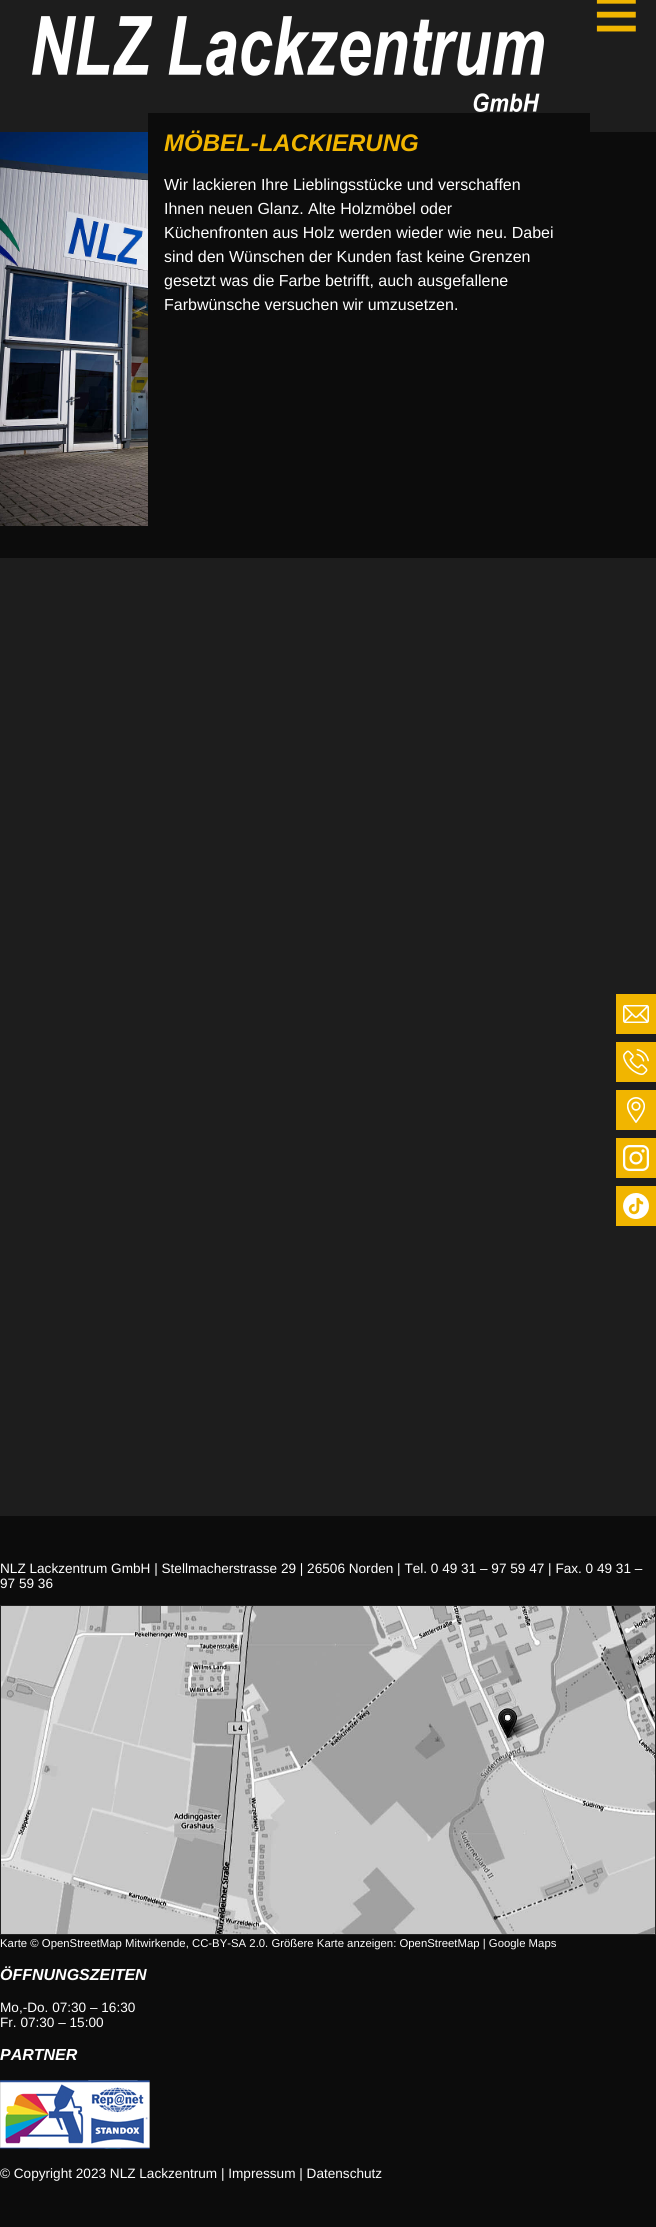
#include <cairo/cairo.h>
#include <math.h>
#include <stddef.h>

typedef struct { double x, y; const char *s; } line_t;
static cairo_t *cr;

static void rgb(unsigned color)
{
	cairo_set_source_rgb(cr, (color >> 16) / 255.0, (color >> 8 & 255) / 255.0, (color & 255) / 255.0);
}

static void image(const char *path, double x, double y, double w, double h)
{
	cairo_surface_t *image = cairo_image_surface_create_from_png(path);
	cairo_save(cr);
	cairo_set_source_surface(cr, image, x, y);
	cairo_rectangle(cr, x, y, w, h);
	cairo_fill(cr);
	cairo_restore(cr);
	cairo_surface_destroy(image);
}

int main(void) {
	cairo_surface_t *surface = cairo_image_surface_create(CAIRO_FORMAT_RGB24, 656, 2227);
	cr = cairo_create(surface);
	cairo_font_options_t *options = cairo_font_options_create();
	cairo_font_options_set_hint_metrics(options, CAIRO_HINT_METRICS_OFF);
	cairo_font_options_set_hint_style(options, CAIRO_HINT_STYLE_NONE);
	cairo_set_font_options(cr, options);
	cairo_set_miter_limit(cr, 4);
	rgb(0x1d1d1d);
	cairo_paint(cr);
	image("img/1.png", 32, 16, 512, 96);
	rgb(0x0c0c0c);
	cairo_rectangle(cr, 0, 132, 656, 426);
	cairo_fill(cr);
	image("img/2.png", 0, 132, 148, 394);
	cairo_rectangle(cr, 148, 113, 442, 19);
	cairo_fill(cr);
	rgb(0xf1b500);
	cairo_rectangle(cr, 616, 994, 40, 40);
	cairo_fill(cr);
	image("img/3.png", 623, 1005, 26, 18);
	cairo_rectangle(cr, 616, 1042, 40, 40);
	cairo_fill(cr);
	image("img/4.png", 623, 1049, 26, 26);
	cairo_rectangle(cr, 616, 1090, 40, 40);
	cairo_fill(cr);
	image("img/5.png", 627, 1097, 18, 26);
	cairo_rectangle(cr, 616, 1138, 40, 40);
	cairo_fill(cr);
	image("img/6.png", 623, 1145, 26, 26);
	cairo_rectangle(cr, 616, 1186, 40, 40);
	cairo_fill(cr);
	image("img/7.png", 623, 1193, 26, 26);
	rgb(0x0c0c0c);
	cairo_rectangle(cr, 0, 1516, 656, 711);
	cairo_fill(cr);
	image("img/8.png", 1, 1606, 654, 328);
	cairo_rectangle(cr, 0.5, 1605.5, 655, 329);
	rgb(0x222222);
	cairo_set_line_width(cr, 1);
	cairo_stroke(cr);
	image("img/9.png", 0, 2080, 150, 69);
	cairo_select_font_face(cr, "Liberation Sans", CAIRO_FONT_SLANT_NORMAL, CAIRO_FONT_WEIGHT_NORMAL);
	cairo_set_font_size(cr, 80);
	rgb(0xf1b500);
	cairo_move_to(cr, 593, 41);
	cairo_show_text(cr, "≡");
	cairo_select_font_face(cr, "Liberation Sans", CAIRO_FONT_SLANT_ITALIC, CAIRO_FONT_WEIGHT_BOLD);
	cairo_set_font_size(cr, 24);
	cairo_move_to(cr, 164, 151);
	cairo_show_text(cr, "MÖBEL-LACKIERUNG");
	cairo_select_font_face(cr, "Liberation Sans", CAIRO_FONT_SLANT_NORMAL, CAIRO_FONT_WEIGHT_NORMAL);
	cairo_set_font_size(cr, 16);
	rgb(0xffffff);
	{
		static const line_t items[] = {
			{164, 190, "Wir lackieren Ihre Lieblingsstücke und verschaffen"},
			{164, 214, "Ihnen neuen Glanz. Alte Holzmöbel oder"},
			{164, 238, "Küchenfronten aus Holz werden wieder wie neu. Dabei"},
			{164, 262, "sind den Wünschen der Kunden fast keine Grenzen"},
			{164, 286, "gesetzt was die Farbe betrifft, auch ausgefallene"},
			{164, 310, "Farbwünsche versuchen wir umzusetzen."},
		};
		for (size_t i = 0; i < sizeof items / sizeof *items; i++) {
			cairo_move_to(cr, items[i].x, items[i].y);
			cairo_show_text(cr, items[i].s);
		}
	}
	cairo_set_font_size(cr, 13.6);
	cairo_move_to(cr, 0, 1573);
	cairo_show_text(cr, "NLZ Lackzentrum GmbH | Stellmacherstrasse 29 | 26506 Norden | Tel. 0 49 31 – 97 59 47 | Fax. 0 49 31 –");
	cairo_move_to(cr, 0, 1588);
	cairo_show_text(cr, "97 59 36");
	cairo_set_font_size(cr, 11.35);
	cairo_move_to(cr, 0, 1947);
	cairo_show_text(cr, "Karte © OpenStreetMap Mitwirkende, CC-BY-SA 2.0. Größere Karte anzeigen: OpenStreetMap | Google Maps");
	cairo_select_font_face(cr, "Liberation Sans", CAIRO_FONT_SLANT_ITALIC, CAIRO_FONT_WEIGHT_BOLD);
	cairo_set_font_size(cr, 16);
	cairo_move_to(cr, 0, 1980);
	cairo_show_text(cr, "ÖFFNUNGSZEITEN");
	cairo_select_font_face(cr, "Liberation Sans", CAIRO_FONT_SLANT_NORMAL, CAIRO_FONT_WEIGHT_NORMAL);
	cairo_set_font_size(cr, 13.6);
	cairo_move_to(cr, 0, 2012);
	cairo_show_text(cr, "Mo,-Do. 07:30 – 16:30");
	cairo_move_to(cr, 0, 2027);
	cairo_show_text(cr, "Fr. 07:30 – 15:00");
	cairo_select_font_face(cr, "Liberation Sans", CAIRO_FONT_SLANT_ITALIC, CAIRO_FONT_WEIGHT_BOLD);
	cairo_set_font_size(cr, 16);
	cairo_move_to(cr, 0, 2060);
	cairo_show_text(cr, "PARTNER");
	cairo_select_font_face(cr, "Liberation Sans", CAIRO_FONT_SLANT_NORMAL, CAIRO_FONT_WEIGHT_NORMAL);
	cairo_set_font_size(cr, 13.6);
	cairo_move_to(cr, 0, 2178);
	cairo_show_text(cr, "© Copyright 2023 NLZ Lackzentrum | Impressum | Datenschutz");
	cairo_surface_write_to_png(surface, "page.png");
	cairo_font_options_destroy(options);
	cairo_destroy(cr);
	cairo_surface_destroy(surface);
	return 0;
}
